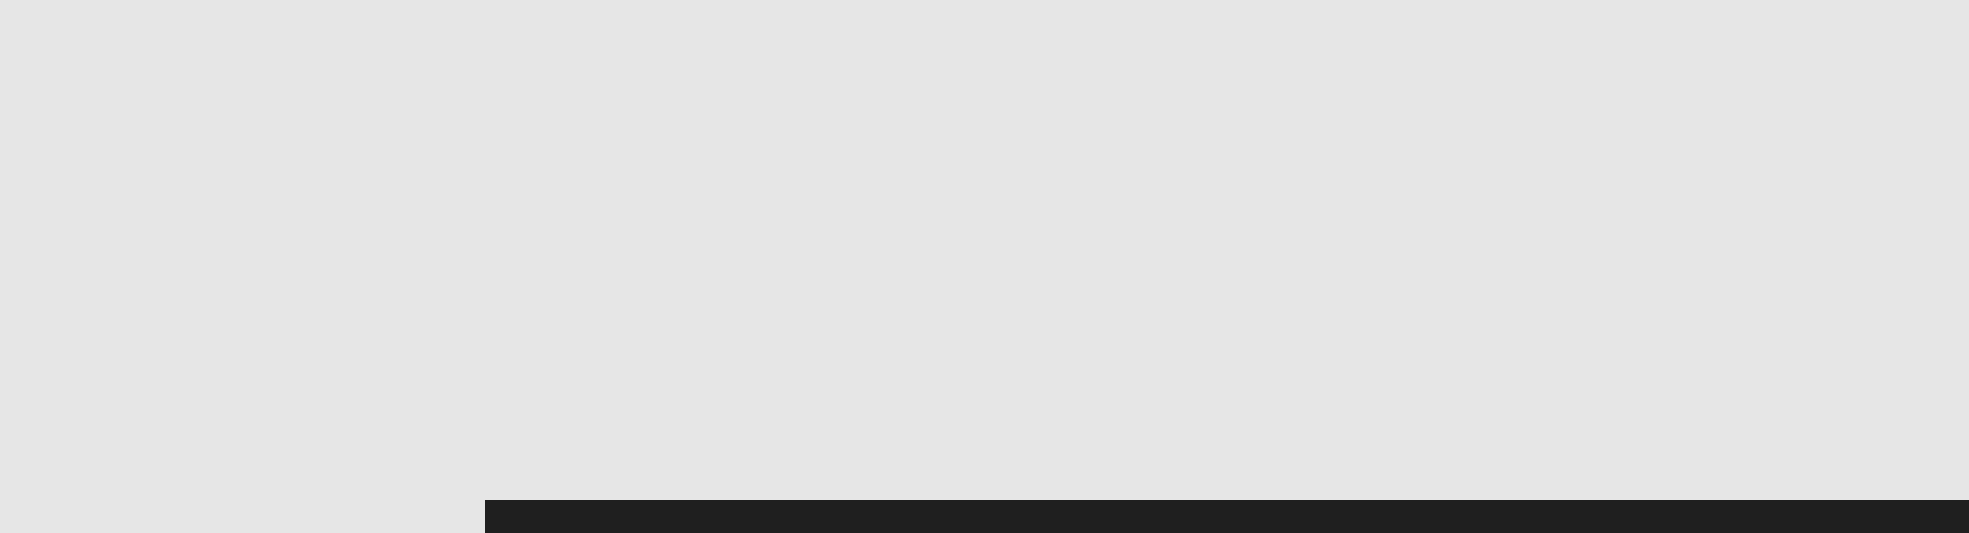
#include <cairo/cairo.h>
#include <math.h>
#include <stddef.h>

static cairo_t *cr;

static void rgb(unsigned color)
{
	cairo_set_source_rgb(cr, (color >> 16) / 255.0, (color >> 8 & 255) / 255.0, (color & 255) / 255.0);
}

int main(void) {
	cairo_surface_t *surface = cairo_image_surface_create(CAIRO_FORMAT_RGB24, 1969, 533);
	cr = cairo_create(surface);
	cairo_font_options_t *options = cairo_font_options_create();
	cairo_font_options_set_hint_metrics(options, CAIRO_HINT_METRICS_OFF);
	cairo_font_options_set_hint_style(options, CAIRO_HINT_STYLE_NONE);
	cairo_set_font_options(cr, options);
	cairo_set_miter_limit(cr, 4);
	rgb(0xe6e6e6);
	cairo_paint(cr);
	rgb(0x1f1f1f);
	cairo_rectangle(cr, 485, 500, 1484, 33);
	cairo_fill(cr);
	cairo_surface_write_to_png(surface, "page.png");
	cairo_font_options_destroy(options);
	cairo_destroy(cr);
	cairo_surface_destroy(surface);
	return 0;
}
